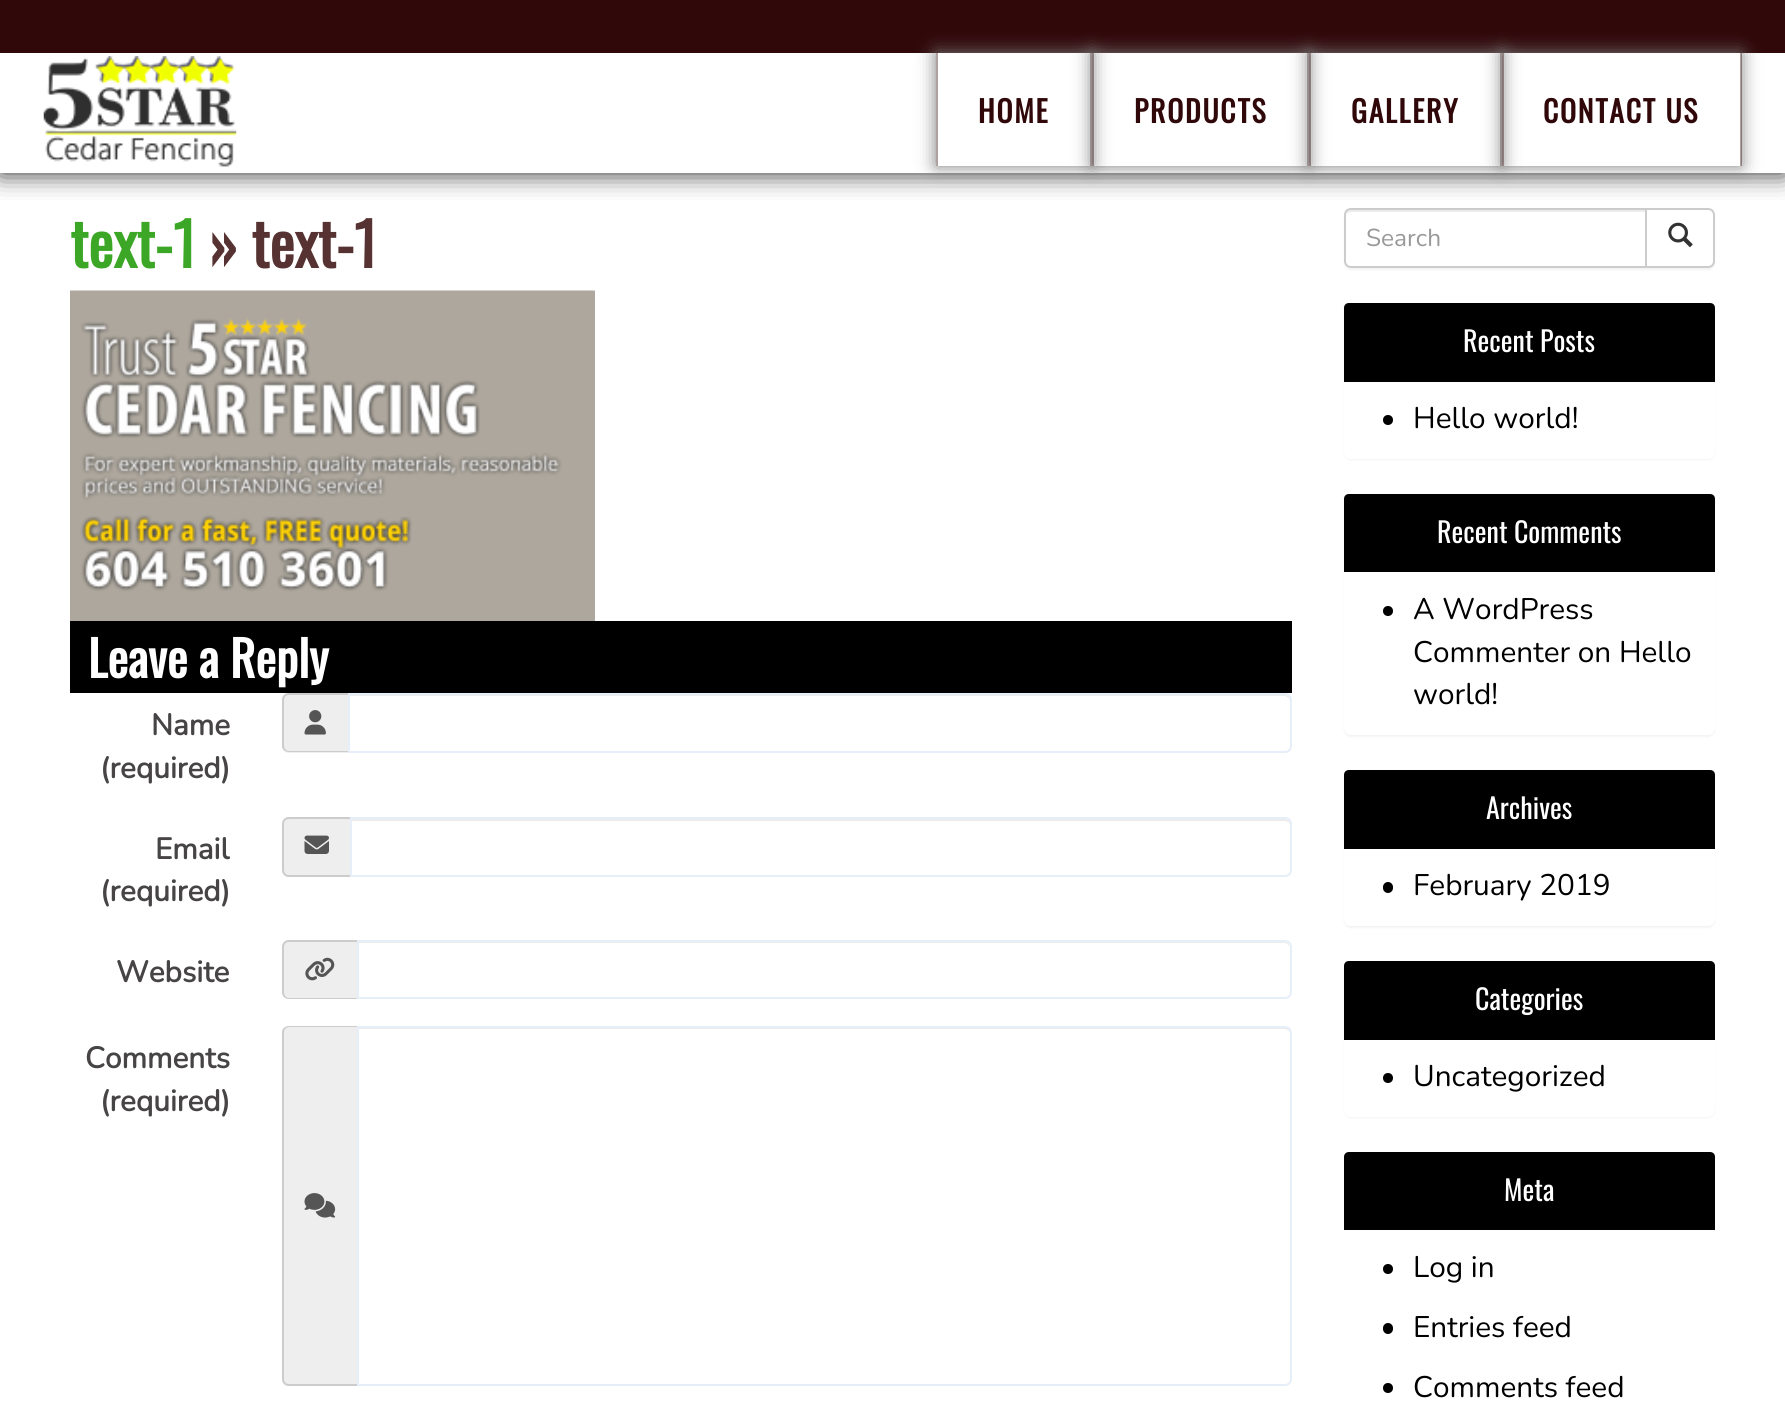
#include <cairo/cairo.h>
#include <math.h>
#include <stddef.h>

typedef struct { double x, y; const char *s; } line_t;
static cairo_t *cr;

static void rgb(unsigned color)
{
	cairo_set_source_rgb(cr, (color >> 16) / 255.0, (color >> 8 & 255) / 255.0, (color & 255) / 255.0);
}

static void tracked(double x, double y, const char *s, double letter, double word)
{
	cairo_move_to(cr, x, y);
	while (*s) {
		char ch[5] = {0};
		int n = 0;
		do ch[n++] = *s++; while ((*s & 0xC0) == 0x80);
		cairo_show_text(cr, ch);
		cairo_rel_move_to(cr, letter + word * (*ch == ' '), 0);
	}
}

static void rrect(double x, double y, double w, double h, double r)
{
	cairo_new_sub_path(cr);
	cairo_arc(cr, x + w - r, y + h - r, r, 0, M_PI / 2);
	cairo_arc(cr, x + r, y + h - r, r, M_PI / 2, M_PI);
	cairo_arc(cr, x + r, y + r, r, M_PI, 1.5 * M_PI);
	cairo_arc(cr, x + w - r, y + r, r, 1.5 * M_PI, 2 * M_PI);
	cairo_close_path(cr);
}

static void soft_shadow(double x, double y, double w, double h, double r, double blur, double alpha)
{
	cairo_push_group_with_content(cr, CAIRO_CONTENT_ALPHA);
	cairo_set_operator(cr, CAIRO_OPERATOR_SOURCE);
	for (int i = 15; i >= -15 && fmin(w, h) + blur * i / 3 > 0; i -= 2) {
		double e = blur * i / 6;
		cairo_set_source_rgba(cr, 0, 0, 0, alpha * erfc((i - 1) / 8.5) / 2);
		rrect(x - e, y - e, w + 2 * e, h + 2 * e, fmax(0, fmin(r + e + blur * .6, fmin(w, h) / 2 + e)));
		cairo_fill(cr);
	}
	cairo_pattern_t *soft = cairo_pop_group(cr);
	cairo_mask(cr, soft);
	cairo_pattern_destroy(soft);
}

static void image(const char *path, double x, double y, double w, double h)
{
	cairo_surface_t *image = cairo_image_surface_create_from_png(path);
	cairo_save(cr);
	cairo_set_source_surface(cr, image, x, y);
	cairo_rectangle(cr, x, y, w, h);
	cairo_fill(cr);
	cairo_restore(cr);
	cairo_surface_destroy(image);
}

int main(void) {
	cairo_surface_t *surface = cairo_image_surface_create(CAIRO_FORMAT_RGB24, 1785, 1422);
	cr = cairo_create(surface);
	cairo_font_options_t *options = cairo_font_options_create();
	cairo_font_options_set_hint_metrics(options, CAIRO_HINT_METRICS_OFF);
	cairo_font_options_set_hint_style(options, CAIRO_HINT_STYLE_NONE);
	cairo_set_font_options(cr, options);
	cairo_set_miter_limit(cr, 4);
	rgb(0xffffff);
	cairo_paint(cr);
	rgb(0x000000);
	soft_shadow(1344, 210, 371, 60, 7, 1, 0.05);
	rgb(0xffffff);
	cairo_new_path(cr);
	cairo_move_to(cr, 1351, 208);
	cairo_line_to(cr, 1647, 208);
	cairo_line_to(cr, 1647, 268);
	cairo_line_to(cr, 1351, 268);
	cairo_curve_to(cr, 1347, 268, 1344, 265, 1344, 261);
	cairo_line_to(cr, 1344, 215);
	cairo_curve_to(cr, 1344, 211, 1347, 208, 1351, 208);
	cairo_close_path(cr);
	cairo_fill(cr);
	rgb(0xececec);
	cairo_new_path(cr);
	cairo_move_to(cr, 1351, 212);
	cairo_line_to(cr, 1645, 212);
	cairo_line_to(cr, 1645, 210);
	cairo_line_to(cr, 1351, 210);
	cairo_curve_to(cr, 1347, 210, 1346, 214, 1346, 217);
	cairo_curve_to(cr, 1346, 214, 1348, 212, 1351, 212);
	cairo_close_path(cr);
	cairo_fill(cr);
	cairo_new_path(cr);
	cairo_move_to(cr, 1351, 209);
	cairo_line_to(cr, 1646, 209);
	cairo_line_to(cr, 1646, 267);
	cairo_line_to(cr, 1351, 267);
	cairo_curve_to(cr, 1347.5, 267, 1345, 264.5, 1345, 261);
	cairo_line_to(cr, 1345, 215);
	cairo_curve_to(cr, 1345, 211.5, 1347.5, 209, 1351, 209);
	cairo_close_path(cr);
	rgb(0xcccccc);
	cairo_stroke(cr);
	cairo_save(cr);
	cairo_rectangle(cr, 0, 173, 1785, 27);
	cairo_clip(cr);
	rgb(0x282828);
	soft_shadow(0, 0, 1785, 173, 0, 13, 1);
	cairo_restore(cr);
	rgb(0x30080a);
	cairo_rectangle(cr, 0, 0, 1785, 53);
	cairo_fill(cr);
	image("img/1.png", 43, 56, 194, 111);
	cairo_save(cr);
	cairo_set_fill_rule(cr, CAIRO_FILL_RULE_EVEN_ODD);
	cairo_new_path(cr);
	cairo_move_to(cr, 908, 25);
	cairo_line_to(cr, 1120, 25);
	cairo_line_to(cr, 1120, 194);
	cairo_line_to(cr, 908, 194);
	cairo_close_path(cr);
	cairo_move_to(cr, 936, 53);
	cairo_line_to(cr, 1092, 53);
	cairo_line_to(cr, 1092, 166);
	cairo_line_to(cr, 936, 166);
	cairo_close_path(cr);
	cairo_clip(cr);
	rgb(0x7a7a7a);
	soft_shadow(936, 53, 156, 113, 0, 9, 1);
	cairo_restore(cr);
	rgb(0xb0a1a2);
	cairo_rectangle(cr, 1090, 53, 2, 113);
	cairo_fill(cr);
	cairo_set_source_rgba(cr, 0.188, 0.031, 0.039, 0.38);
	cairo_rectangle(cr, 936, 53, 2, 113);
	cairo_fill(cr);
	cairo_save(cr);
	cairo_set_fill_rule(cr, CAIRO_FILL_RULE_EVEN_ODD);
	cairo_new_path(cr);
	cairo_move_to(cr, 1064, 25);
	cairo_line_to(cr, 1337, 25);
	cairo_line_to(cr, 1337, 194);
	cairo_line_to(cr, 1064, 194);
	cairo_close_path(cr);
	cairo_move_to(cr, 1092, 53);
	cairo_line_to(cr, 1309, 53);
	cairo_line_to(cr, 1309, 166);
	cairo_line_to(cr, 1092, 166);
	cairo_close_path(cr);
	cairo_clip(cr);
	rgb(0x7a7a7a);
	soft_shadow(1092, 53, 217, 113, 0, 9, 1);
	cairo_restore(cr);
	rgb(0xb0a1a2);
	cairo_rectangle(cr, 1307, 53, 2, 113);
	cairo_fill(cr);
	cairo_set_source_rgba(cr, 0.188, 0.031, 0.039, 0.38);
	cairo_rectangle(cr, 1092, 53, 2, 113);
	cairo_fill(cr);
	cairo_save(cr);
	cairo_set_fill_rule(cr, CAIRO_FILL_RULE_EVEN_ODD);
	cairo_new_path(cr);
	cairo_move_to(cr, 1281, 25);
	cairo_line_to(cr, 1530, 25);
	cairo_line_to(cr, 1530, 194);
	cairo_line_to(cr, 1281, 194);
	cairo_close_path(cr);
	cairo_move_to(cr, 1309, 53);
	cairo_line_to(cr, 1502, 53);
	cairo_line_to(cr, 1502, 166);
	cairo_line_to(cr, 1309, 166);
	cairo_close_path(cr);
	cairo_clip(cr);
	rgb(0x7a7a7a);
	soft_shadow(1309, 53, 193, 113, 0, 9, 1);
	cairo_restore(cr);
	cairo_rectangle(cr, 1500, 53, 2, 113);
	cairo_fill(cr);
	cairo_rectangle(cr, 1309, 53, 2, 113);
	cairo_fill(cr);
	cairo_save(cr);
	cairo_set_fill_rule(cr, CAIRO_FILL_RULE_EVEN_ODD);
	cairo_new_path(cr);
	cairo_move_to(cr, 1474, 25);
	cairo_line_to(cr, 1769, 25);
	cairo_line_to(cr, 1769, 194);
	cairo_line_to(cr, 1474, 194);
	cairo_close_path(cr);
	cairo_move_to(cr, 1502, 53);
	cairo_line_to(cr, 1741, 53);
	cairo_line_to(cr, 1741, 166);
	cairo_line_to(cr, 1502, 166);
	cairo_close_path(cr);
	cairo_clip(cr);
	rgb(0x7a7a7a);
	soft_shadow(1502, 53, 239, 113, 0, 9, 1);
	cairo_restore(cr);
	cairo_rectangle(cr, 1740, 53, 2, 113);
	cairo_fill(cr);
	cairo_rectangle(cr, 1502, 53, 2, 113);
	cairo_fill(cr);
	image("img/2.png", 70, 290, 525, 331);
	rgb(0x000000);
	cairo_rectangle(cr, 70, 621, 1222, 72);
	cairo_fill(cr);
	rgb(0xeeeeee);
	cairo_new_path(cr);
	cairo_move_to(cr, 289, 693);
	cairo_line_to(cr, 348, 693);
	cairo_line_to(cr, 348, 753);
	cairo_line_to(cr, 289, 753);
	cairo_curve_to(cr, 285, 753, 282, 750, 282, 746);
	cairo_line_to(cr, 282, 700);
	cairo_curve_to(cr, 282, 696, 285, 693, 289, 693);
	cairo_close_path(cr);
	cairo_fill(cr);
	rgb(0xcccccc);
	cairo_set_fill_rule(cr, CAIRO_FILL_RULE_EVEN_ODD);
	cairo_new_path(cr);
	cairo_move_to(cr, 289, 693);
	cairo_line_to(cr, 348, 693);
	cairo_line_to(cr, 348, 752);
	cairo_line_to(cr, 289, 752);
	cairo_curve_to(cr, 285, 752, 282, 749, 282, 746);
	cairo_line_to(cr, 282, 700);
	cairo_curve_to(cr, 282, 696, 285, 693, 289, 693);
	cairo_close_path(cr);
	cairo_move_to(cr, 289, 695);
	cairo_line_to(cr, 348, 695);
	cairo_line_to(cr, 348, 751);
	cairo_line_to(cr, 289, 751);
	cairo_curve_to(cr, 286, 751, 284, 748, 284, 746);
	cairo_line_to(cr, 284, 700);
	cairo_curve_to(cr, 284, 697, 286, 695, 289, 695);
	cairo_close_path(cr);
	cairo_fill(cr);
	image("img/3.png", 304, 710, 22, 25);
	rgb(0xececec);
	cairo_set_fill_rule(cr, CAIRO_FILL_RULE_WINDING);
	cairo_new_path(cr);
	cairo_move_to(cr, 350, 696);
	cairo_line_to(cr, 1284, 696);
	cairo_curve_to(cr, 1287, 696, 1290, 699, 1290, 702);
	cairo_curve_to(cr, 1290, 699, 1289, 695, 1285, 695);
	cairo_line_to(cr, 350, 695);
	cairo_close_path(cr);
	cairo_fill(cr);
	cairo_new_path(cr);
	cairo_move_to(cr, 349, 694);
	cairo_line_to(cr, 1285, 694);
	cairo_curve_to(cr, 1288.5, 694, 1291, 696.5, 1291, 700);
	cairo_line_to(cr, 1291, 746);
	cairo_curve_to(cr, 1291, 749.5, 1288.5, 752, 1285, 752);
	cairo_line_to(cr, 349, 752);
	cairo_close_path(cr);
	rgb(0xe6eff9);
	cairo_stroke(cr);
	rgb(0xeeeeee);
	cairo_new_path(cr);
	cairo_move_to(cr, 289, 817);
	cairo_line_to(cr, 350, 817);
	cairo_line_to(cr, 350, 877);
	cairo_line_to(cr, 289, 877);
	cairo_curve_to(cr, 285, 877, 282, 874, 282, 870);
	cairo_line_to(cr, 282, 824);
	cairo_curve_to(cr, 282, 820, 285, 817, 289, 817);
	cairo_close_path(cr);
	cairo_fill(cr);
	rgb(0xcccccc);
	cairo_set_fill_rule(cr, CAIRO_FILL_RULE_EVEN_ODD);
	cairo_new_path(cr);
	cairo_move_to(cr, 289, 817);
	cairo_line_to(cr, 350, 817);
	cairo_line_to(cr, 350, 877);
	cairo_line_to(cr, 289, 877);
	cairo_curve_to(cr, 285, 877, 282, 874, 282, 870);
	cairo_line_to(cr, 282, 824);
	cairo_curve_to(cr, 282, 820, 285, 817, 289, 817);
	cairo_close_path(cr);
	cairo_move_to(cr, 289, 819);
	cairo_line_to(cr, 350, 819);
	cairo_line_to(cr, 350, 875);
	cairo_line_to(cr, 289, 875);
	cairo_curve_to(cr, 286, 875, 284, 873, 284, 870);
	cairo_line_to(cr, 284, 824);
	cairo_curve_to(cr, 284, 821, 286, 819, 289, 819);
	cairo_close_path(cr);
	cairo_fill(cr);
	image("img/4.png", 304, 835, 25, 19);
	rgb(0xececec);
	cairo_set_fill_rule(cr, CAIRO_FILL_RULE_WINDING);
	cairo_new_path(cr);
	cairo_move_to(cr, 352, 821);
	cairo_line_to(cr, 1284, 821);
	cairo_curve_to(cr, 1287, 821, 1290, 823, 1290, 826);
	cairo_curve_to(cr, 1290, 823, 1289, 819, 1285, 819);
	cairo_line_to(cr, 352, 819);
	cairo_close_path(cr);
	cairo_fill(cr);
	cairo_new_path(cr);
	cairo_move_to(cr, 351, 818);
	cairo_line_to(cr, 1285, 818);
	cairo_curve_to(cr, 1288.5, 818, 1291, 820.5, 1291, 824);
	cairo_line_to(cr, 1291, 870);
	cairo_curve_to(cr, 1291, 873.5, 1288.5, 876, 1285, 876);
	cairo_line_to(cr, 351, 876);
	cairo_close_path(cr);
	rgb(0xe6eff9);
	cairo_stroke(cr);
	rgb(0xeeeeee);
	cairo_new_path(cr);
	cairo_move_to(cr, 289, 940);
	cairo_line_to(cr, 357, 940);
	cairo_line_to(cr, 357, 999);
	cairo_line_to(cr, 289, 999);
	cairo_curve_to(cr, 285, 999, 282, 996, 282, 992);
	cairo_line_to(cr, 282, 947);
	cairo_curve_to(cr, 282, 943, 285, 940, 289, 940);
	cairo_close_path(cr);
	cairo_fill(cr);
	rgb(0xcccccc);
	cairo_set_fill_rule(cr, CAIRO_FILL_RULE_EVEN_ODD);
	cairo_new_path(cr);
	cairo_move_to(cr, 289, 940);
	cairo_line_to(cr, 357, 940);
	cairo_line_to(cr, 357, 999);
	cairo_line_to(cr, 289, 999);
	cairo_curve_to(cr, 285, 999, 282, 996, 282, 992);
	cairo_line_to(cr, 282, 947);
	cairo_curve_to(cr, 282, 943, 285, 940, 289, 940);
	cairo_close_path(cr);
	cairo_move_to(cr, 289, 942);
	cairo_line_to(cr, 357, 942);
	cairo_line_to(cr, 357, 998);
	cairo_line_to(cr, 289, 998);
	cairo_curve_to(cr, 286, 998, 284, 995, 284, 992);
	cairo_line_to(cr, 284, 947);
	cairo_curve_to(cr, 284, 944, 286, 942, 289, 942);
	cairo_close_path(cr);
	cairo_fill(cr);
	image("img/5.png", 305, 957, 30, 24);
	rgb(0xececec);
	cairo_set_fill_rule(cr, CAIRO_FILL_RULE_WINDING);
	cairo_new_path(cr);
	cairo_move_to(cr, 359, 943);
	cairo_line_to(cr, 1284, 943);
	cairo_curve_to(cr, 1287, 943, 1290, 946, 1290, 948);
	cairo_curve_to(cr, 1290, 945, 1288, 942, 1285, 942);
	cairo_line_to(cr, 359, 942);
	cairo_close_path(cr);
	cairo_fill(cr);
	cairo_new_path(cr);
	cairo_move_to(cr, 358, 941);
	cairo_line_to(cr, 1285, 941);
	cairo_curve_to(cr, 1288.5, 941, 1291, 943.5, 1291, 947);
	cairo_line_to(cr, 1291, 992);
	cairo_curve_to(cr, 1291, 995.5, 1288.5, 998, 1285, 998);
	cairo_line_to(cr, 358, 998);
	cairo_close_path(cr);
	rgb(0xe6eff9);
	cairo_stroke(cr);
	rgb(0xeeeeee);
	cairo_new_path(cr);
	cairo_move_to(cr, 289, 1026);
	cairo_line_to(cr, 357, 1026);
	cairo_line_to(cr, 357, 1386);
	cairo_line_to(cr, 289, 1386);
	cairo_curve_to(cr, 285, 1386, 282, 1383, 282, 1379);
	cairo_line_to(cr, 282, 1033);
	cairo_curve_to(cr, 282, 1029, 285, 1026, 289, 1026);
	cairo_close_path(cr);
	cairo_fill(cr);
	rgb(0xcccccc);
	cairo_set_fill_rule(cr, CAIRO_FILL_RULE_EVEN_ODD);
	cairo_new_path(cr);
	cairo_move_to(cr, 289, 1026);
	cairo_line_to(cr, 357, 1026);
	cairo_line_to(cr, 357, 1386);
	cairo_line_to(cr, 289, 1386);
	cairo_curve_to(cr, 285, 1386, 282, 1383, 282, 1379);
	cairo_line_to(cr, 282, 1032);
	cairo_curve_to(cr, 282, 1029, 285, 1026, 289, 1026);
	cairo_close_path(cr);
	cairo_move_to(cr, 289, 1027);
	cairo_line_to(cr, 357, 1027);
	cairo_line_to(cr, 357, 1384);
	cairo_line_to(cr, 289, 1384);
	cairo_curve_to(cr, 286, 1384, 284, 1382, 284, 1379);
	cairo_line_to(cr, 284, 1032);
	cairo_curve_to(cr, 284, 1030, 286, 1027, 289, 1027);
	cairo_close_path(cr);
	cairo_fill(cr);
	image("img/6.png", 304, 1193, 32, 25);
	rgb(0xececec);
	cairo_set_fill_rule(cr, CAIRO_FILL_RULE_WINDING);
	cairo_new_path(cr);
	cairo_move_to(cr, 359, 1029);
	cairo_line_to(cr, 1284, 1029);
	cairo_curve_to(cr, 1287, 1029, 1290, 1031, 1290, 1034);
	cairo_curve_to(cr, 1290, 1031, 1289, 1027, 1285, 1027);
	cairo_line_to(cr, 359, 1027);
	cairo_close_path(cr);
	cairo_fill(cr);
	cairo_new_path(cr);
	cairo_move_to(cr, 358, 1027);
	cairo_line_to(cr, 1285, 1027);
	cairo_curve_to(cr, 1288.5, 1027, 1291, 1029.5, 1291, 1033);
	cairo_line_to(cr, 1291, 1379);
	cairo_curve_to(cr, 1291, 1382.5, 1288.5, 1385, 1285, 1385);
	cairo_line_to(cr, 358, 1385);
	cairo_close_path(cr);
	rgb(0xe6eff9);
	cairo_stroke(cr);
	rgb(0xffffff);
	cairo_new_path(cr);
	cairo_move_to(cr, 1646, 209);
	cairo_line_to(cr, 1708, 209);
	cairo_curve_to(cr, 1711.5, 209, 1714, 211.5, 1714, 215);
	cairo_line_to(cr, 1714, 261);
	cairo_curve_to(cr, 1714, 264.5, 1711.5, 267, 1708, 267);
	cairo_line_to(cr, 1646, 267);
	cairo_close_path(cr);
	cairo_fill_preserve(cr);
	rgb(0xcccccc);
	cairo_stroke(cr);
	image("img/7.png", 1668, 222, 25, 26);
	rgb(0x000000);
	soft_shadow(1344, 305, 371, 155, 7, 1, 0.05);
	rgb(0xffffff);
	rrect(1344, 303, 371, 156, 7);
	cairo_fill(cr);
	rgb(0x000000);
	cairo_new_path(cr);
	cairo_move_to(cr, 1349, 303);
	cairo_line_to(cr, 1710, 303);
	cairo_curve_to(cr, 1713, 303, 1715, 305, 1715, 308);
	cairo_line_to(cr, 1715, 382);
	cairo_line_to(cr, 1344, 382);
	cairo_line_to(cr, 1344, 308);
	cairo_curve_to(cr, 1344, 305, 1346, 303, 1349, 303);
	cairo_close_path(cr);
	cairo_fill(cr);
	cairo_arc(cr, 1388, 420, 5, 0, 2 * M_PI);
	cairo_fill(cr);
	rgb(0x000000);
	soft_shadow(1344, 495, 371, 242, 7, 1, 0.05);
	rgb(0xffffff);
	rrect(1344, 494, 371, 241, 7);
	cairo_fill(cr);
	rgb(0x000000);
	cairo_new_path(cr);
	cairo_move_to(cr, 1349, 494);
	cairo_line_to(cr, 1710, 494);
	cairo_curve_to(cr, 1713, 494, 1715, 496, 1715, 499);
	cairo_line_to(cr, 1715, 572);
	cairo_line_to(cr, 1344, 572);
	cairo_line_to(cr, 1344, 499);
	cairo_curve_to(cr, 1344, 496, 1346, 494, 1349, 494);
	cairo_close_path(cr);
	cairo_fill(cr);
	cairo_arc(cr, 1388, 611, 5, 0, 2 * M_PI);
	cairo_fill(cr);
	rgb(0x000000);
	soft_shadow(1344, 772, 371, 156, 7, 1, 0.05);
	rgb(0xffffff);
	rrect(1344, 770, 371, 156, 7);
	cairo_fill(cr);
	rgb(0x000000);
	cairo_new_path(cr);
	cairo_move_to(cr, 1349, 770);
	cairo_line_to(cr, 1710, 770);
	cairo_curve_to(cr, 1713, 770, 1715, 772, 1715, 775);
	cairo_line_to(cr, 1715, 849);
	cairo_line_to(cr, 1344, 849);
	cairo_line_to(cr, 1344, 775);
	cairo_curve_to(cr, 1344, 772, 1346, 770, 1349, 770);
	cairo_close_path(cr);
	cairo_fill(cr);
	rrect(1383, 882, 10, 11, 5);
	cairo_fill(cr);
	rgb(0x000000);
	soft_shadow(1344, 963, 371, 155, 7, 1, 0.05);
	rgb(0xffffff);
	rrect(1344, 961, 371, 156, 7);
	cairo_fill(cr);
	rgb(0x000000);
	cairo_new_path(cr);
	cairo_move_to(cr, 1349, 961);
	cairo_line_to(cr, 1710, 961);
	cairo_curve_to(cr, 1713, 961, 1715, 963, 1715, 966);
	cairo_line_to(cr, 1715, 1040);
	cairo_line_to(cr, 1344, 1040);
	cairo_line_to(cr, 1344, 966);
	cairo_curve_to(cr, 1344, 963, 1346, 961, 1349, 961);
	cairo_close_path(cr);
	cairo_fill(cr);
	cairo_arc(cr, 1388, 1078, 5, 0, 2 * M_PI);
	cairo_fill(cr);
	cairo_new_path(cr);
	cairo_move_to(cr, 1349, 1152);
	cairo_line_to(cr, 1710, 1152);
	cairo_curve_to(cr, 1713, 1152, 1715, 1154, 1715, 1157);
	cairo_line_to(cr, 1715, 1230);
	cairo_line_to(cr, 1344, 1230);
	cairo_line_to(cr, 1344, 1157);
	cairo_curve_to(cr, 1344, 1154, 1346, 1152, 1349, 1152);
	cairo_close_path(cr);
	cairo_fill(cr);
	cairo_arc(cr, 1388, 1269, 5, 0, 2 * M_PI);
	cairo_fill(cr);
	rrect(1383, 1323, 10, 11, 5);
	cairo_fill(cr);
	cairo_arc(cr, 1388, 1388, 5, 0, 2 * M_PI);
	cairo_fill(cr);
	cairo_select_font_face(cr, "Oswald", CAIRO_FONT_SLANT_NORMAL, CAIRO_FONT_WEIGHT_BOLD);
	cairo_set_font_size(cr, 29.75);
	rgb(0x30080a);
	{
		static const line_t items[] = {
			{978, 123, "HOME"},
			{1134, 123, "PRODUCTS"},
			{1351, 123, "GALLERY"},
			{1543, 123, "CONTACT US"},
		};
		for (size_t i = 0; i < sizeof items / sizeof *items; i++) {
			tracked(items[i].x, items[i].y, items[i].s, 1.75, 0);
		}
	}
	cairo_set_font_size(cr, 59.5);
	rgb(0x3ca726);
	cairo_move_to(cr, 70, 268);
	cairo_show_text(cr, "text-1");
	rgb(0x563232);
	cairo_move_to(cr, 209, 268);
	cairo_show_text(cr, "» text-1");
	cairo_set_font_size(cr, 49);
	rgb(0xffffff);
	cairo_move_to(cr, 88, 678);
	cairo_show_text(cr, "Leave a Reply");
	cairo_select_font_face(cr, "Nunito", CAIRO_FONT_SLANT_NORMAL, CAIRO_FONT_WEIGHT_BOLD);
	cairo_set_font_size(cr, 29.75);
	rgb(0x474445);
	{
		static const line_t items[] = {
			{151, 735, "Name"},
			{100, 778, "(required)"},
			{155, 859, "Email"},
			{100, 901, "(required)"},
			{116, 982, "Website"},
			{85, 1068, "Comments"},
			{100, 1111, "(required)"},
		};
		for (size_t i = 0; i < sizeof items / sizeof *items; i++) {
			cairo_move_to(cr, items[i].x, items[i].y);
			cairo_show_text(cr, items[i].s);
		}
	}
	cairo_select_font_face(cr, "Nunito ExtraLight", CAIRO_FONT_SLANT_NORMAL, CAIRO_FONT_WEIGHT_NORMAL);
	cairo_set_font_size(cr, 24.5);
	rgb(0x999999);
	cairo_move_to(cr, 1366, 246);
	cairo_show_text(cr, "Search");
	cairo_select_font_face(cr, "Oswald", CAIRO_FONT_SLANT_NORMAL, CAIRO_FONT_WEIGHT_NORMAL);
	cairo_set_font_size(cr, 28);
	rgb(0xffffff);
	cairo_move_to(cr, 1463, 352);
	cairo_show_text(cr, "Recent Posts");
	cairo_select_font_face(cr, "Nunito ExtraLight", CAIRO_FONT_SLANT_NORMAL, CAIRO_FONT_WEIGHT_NORMAL);
	cairo_set_font_size(cr, 29.75);
	rgb(0x000000);
	cairo_move_to(cr, 1413, 428);
	cairo_show_text(cr, "Hello world!");
	cairo_select_font_face(cr, "Oswald", CAIRO_FONT_SLANT_NORMAL, CAIRO_FONT_WEIGHT_NORMAL);
	cairo_set_font_size(cr, 28);
	rgb(0xffffff);
	cairo_move_to(cr, 1437, 543);
	cairo_show_text(cr, "Recent Comments");
	cairo_select_font_face(cr, "Nunito ExtraLight", CAIRO_FONT_SLANT_NORMAL, CAIRO_FONT_WEIGHT_NORMAL);
	cairo_set_font_size(cr, 29.75);
	rgb(0x000000);
	{
		static const line_t items[] = {
			{1413, 619, "A WordPress"},
			{1413, 662, "Commenter on Hello"},
			{1413, 704, "world!"},
		};
		for (size_t i = 0; i < sizeof items / sizeof *items; i++) {
			cairo_move_to(cr, items[i].x, items[i].y);
			cairo_show_text(cr, items[i].s);
		}
	}
	cairo_select_font_face(cr, "Oswald", CAIRO_FONT_SLANT_NORMAL, CAIRO_FONT_WEIGHT_NORMAL);
	cairo_set_font_size(cr, 28);
	rgb(0xffffff);
	cairo_move_to(cr, 1486, 819);
	cairo_show_text(cr, "Archives");
	cairo_select_font_face(cr, "Nunito ExtraLight", CAIRO_FONT_SLANT_NORMAL, CAIRO_FONT_WEIGHT_NORMAL);
	cairo_set_font_size(cr, 29.75);
	rgb(0x000000);
	cairo_move_to(cr, 1413, 895);
	cairo_show_text(cr, "February 2019");
	cairo_select_font_face(cr, "Oswald", CAIRO_FONT_SLANT_NORMAL, CAIRO_FONT_WEIGHT_NORMAL);
	cairo_set_font_size(cr, 28);
	rgb(0xffffff);
	cairo_move_to(cr, 1475, 1010);
	cairo_show_text(cr, "Categories");
	cairo_select_font_face(cr, "Nunito ExtraLight", CAIRO_FONT_SLANT_NORMAL, CAIRO_FONT_WEIGHT_NORMAL);
	cairo_set_font_size(cr, 29.75);
	rgb(0x000000);
	cairo_move_to(cr, 1413, 1086);
	cairo_show_text(cr, "Uncategorized");
	cairo_select_font_face(cr, "Oswald", CAIRO_FONT_SLANT_NORMAL, CAIRO_FONT_WEIGHT_NORMAL);
	cairo_set_font_size(cr, 28);
	rgb(0xffffff);
	cairo_move_to(cr, 1504, 1201);
	cairo_show_text(cr, "Meta");
	cairo_select_font_face(cr, "Nunito ExtraLight", CAIRO_FONT_SLANT_NORMAL, CAIRO_FONT_WEIGHT_NORMAL);
	cairo_set_font_size(cr, 29.75);
	rgb(0x000000);
	{
		static const line_t items[] = {
			{1413, 1277, "Log in"},
			{1413, 1337, "Entries feed"},
			{1413, 1397, "Comments feed"},
		};
		for (size_t i = 0; i < sizeof items / sizeof *items; i++) {
			cairo_move_to(cr, items[i].x, items[i].y);
			cairo_show_text(cr, items[i].s);
		}
	}
	cairo_surface_write_to_png(surface, "page.png");
	cairo_font_options_destroy(options);
	cairo_destroy(cr);
	cairo_surface_destroy(surface);
	return 0;
}
